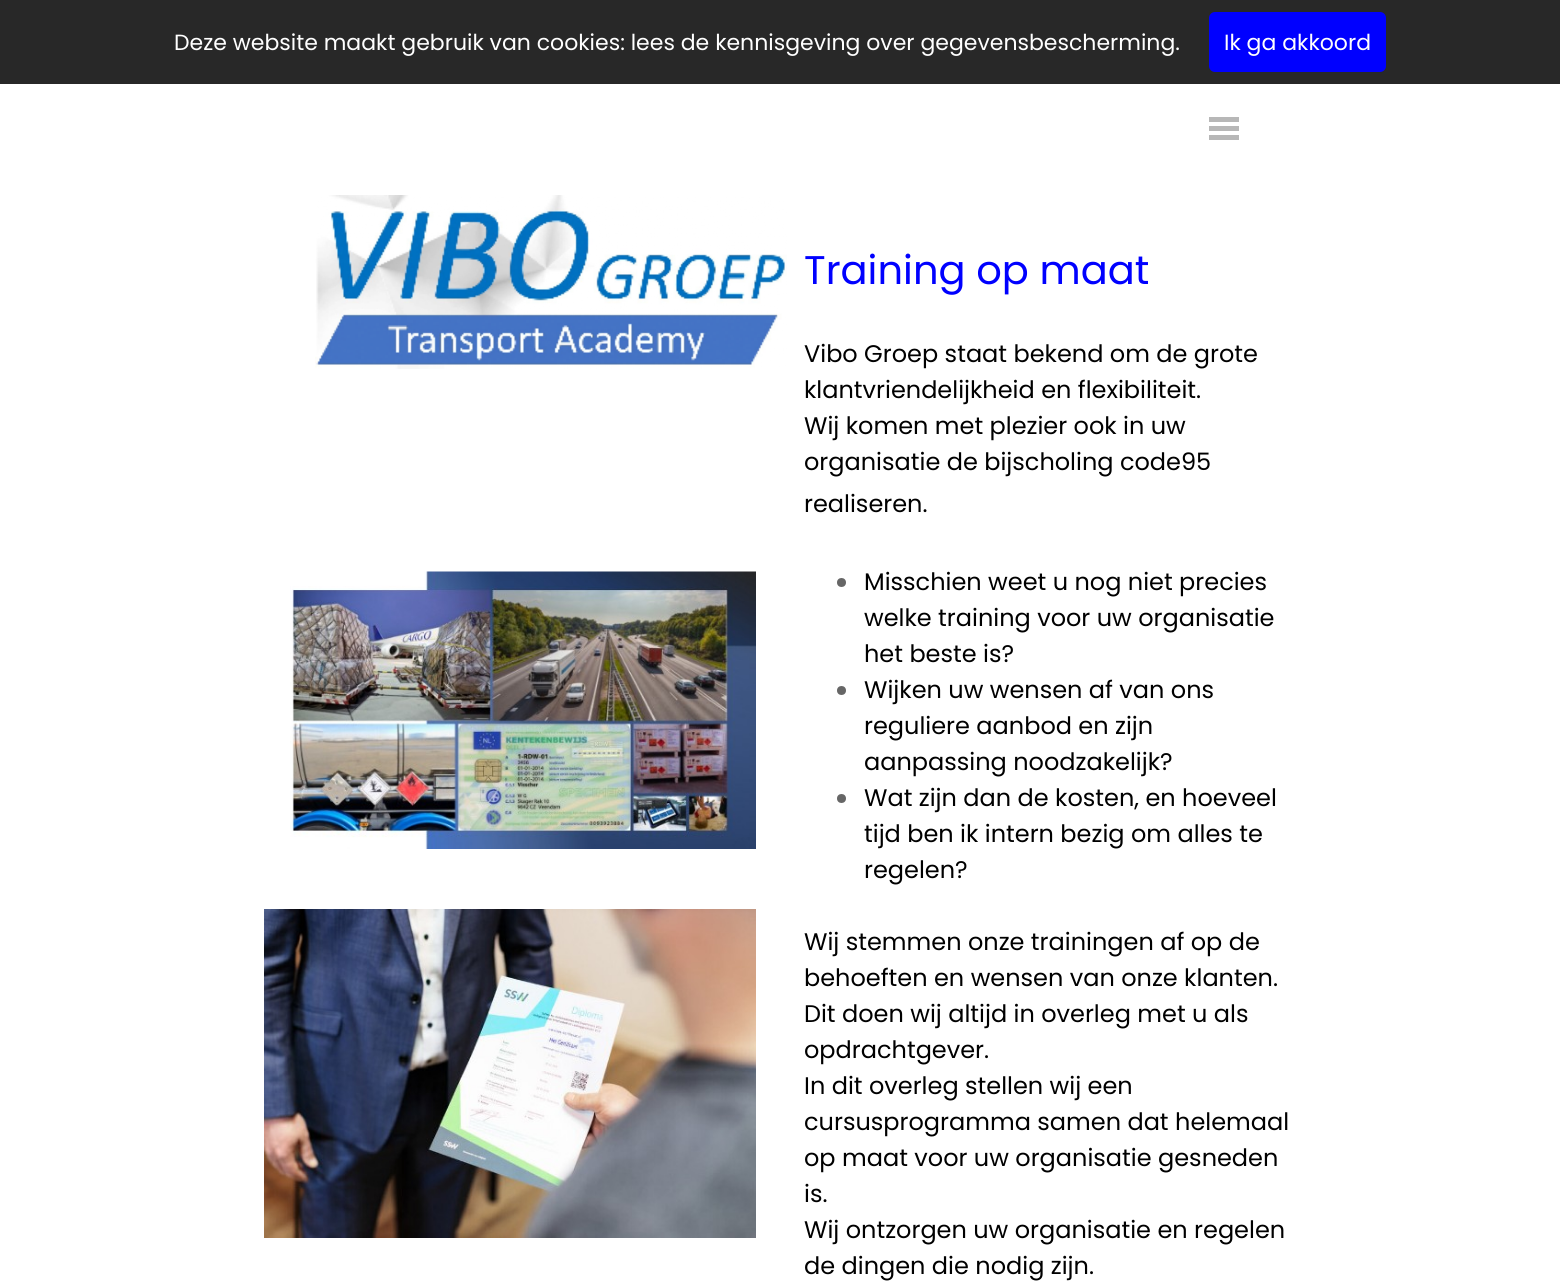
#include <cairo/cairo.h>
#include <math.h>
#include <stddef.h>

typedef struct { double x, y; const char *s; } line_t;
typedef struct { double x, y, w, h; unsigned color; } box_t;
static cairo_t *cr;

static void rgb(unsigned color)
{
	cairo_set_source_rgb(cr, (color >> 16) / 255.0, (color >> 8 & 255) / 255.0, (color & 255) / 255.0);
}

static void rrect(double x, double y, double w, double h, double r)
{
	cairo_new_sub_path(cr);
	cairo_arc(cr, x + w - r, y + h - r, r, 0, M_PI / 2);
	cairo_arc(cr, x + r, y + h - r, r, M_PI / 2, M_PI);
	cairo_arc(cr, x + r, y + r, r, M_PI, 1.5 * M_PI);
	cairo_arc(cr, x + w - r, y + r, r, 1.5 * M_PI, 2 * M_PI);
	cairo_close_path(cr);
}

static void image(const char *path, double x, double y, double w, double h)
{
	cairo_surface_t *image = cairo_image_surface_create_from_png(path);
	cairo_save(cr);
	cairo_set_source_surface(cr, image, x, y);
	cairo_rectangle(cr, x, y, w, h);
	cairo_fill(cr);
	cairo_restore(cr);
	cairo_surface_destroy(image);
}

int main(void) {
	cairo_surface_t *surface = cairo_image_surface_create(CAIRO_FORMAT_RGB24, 1560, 1285);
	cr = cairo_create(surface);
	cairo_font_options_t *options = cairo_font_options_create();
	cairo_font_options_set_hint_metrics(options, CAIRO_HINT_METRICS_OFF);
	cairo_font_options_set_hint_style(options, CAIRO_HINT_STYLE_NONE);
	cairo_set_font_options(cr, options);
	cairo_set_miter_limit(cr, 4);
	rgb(0xffffff);
	cairo_paint(cr);
	rgb(0x282828);
	cairo_rectangle(cr, 0, 0, 1560, 84);
	cairo_fill(cr);
	rgb(0x0000ff);
	rrect(1209, 12, 177, 60, 6);
	cairo_fill(cr);
	{
		static const box_t items[] = {
			{1209, 117, 30, 5, 0xb7b7b7},
			{1209, 126, 30, 5, 0xb7b7b7},
			{1209, 135, 30, 5, 0xb7b7b7},
		};
		for (size_t i = 0; i < sizeof items / sizeof *items; i++) {
			rgb(items[i].color);
			cairo_rectangle(cr, items[i].x, items[i].y, items[i].w, items[i].h);
			cairo_fill(cr);
		}
	}
	image("img/1.png", 315, 195, 472, 174);
	image("img/2.png", 290, 571, 466, 278);
	rgb(0x666666);
	cairo_arc(cr, 841.5, 582.5, 4.5, 0, 2 * M_PI);
	cairo_fill(cr);
	cairo_arc(cr, 841.5, 690.5, 4.5, 0, 2 * M_PI);
	cairo_fill(cr);
	cairo_arc(cr, 841.5, 798.5, 4.5, 0, 2 * M_PI);
	cairo_fill(cr);
	image("img/3.png", 264, 909, 492, 329);
	cairo_select_font_face(cr, "Poppins", CAIRO_FONT_SLANT_NORMAL, CAIRO_FONT_WEIGHT_NORMAL);
	cairo_set_font_size(cr, 22);
	rgb(0xffffff);
	cairo_move_to(cr, 174, 50);
	cairo_show_text(cr, "Deze website maakt gebruik van cookies: lees de kennisgeving over gegevensbescherming.");
	cairo_move_to(cr, 1224, 50);
	cairo_show_text(cr, "Ik ga akkoord");
	cairo_set_font_size(cr, 40);
	rgb(0x0000ff);
	cairo_move_to(cr, 804, 284);
	cairo_show_text(cr, "Training op maat");
	cairo_set_font_size(cr, 24);
	rgb(0x000000);
	{
		static const line_t items[] = {
			{804, 362, "Vibo Groep staat bekend om de grote"},
			{804, 398, "klantvriendelijkheid en flexibiliteit."},
			{804, 434, "Wij komen met plezier ook in uw"},
			{804, 470, "organisatie de bijscholing code95"},
			{804, 512, "realiseren."},
			{864, 590, "Misschien weet u nog niet precies"},
			{864, 626, "welke training voor uw organisatie"},
			{864, 662, "het beste is?"},
			{864, 698, "Wijken uw wensen af van ons"},
			{864, 734, "reguliere aanbod en zijn"},
			{864, 770, "aanpassing noodzakelijk?"},
			{864, 806, "Wat zijn dan de kosten, en hoeveel"},
			{864, 842, "tijd ben ik intern bezig om alles te"},
			{864, 878, "regelen?"},
			{804, 950, "Wij stemmen onze trainingen af op de"},
			{804, 986, "behoeften en wensen van onze klanten."},
			{804, 1022, "Dit doen wij altijd in overleg met u als"},
			{804, 1058, "opdrachtgever."},
			{804, 1094, "In dit overleg stellen wij een"},
			{804, 1130, "cursusprogramma samen dat helemaal"},
			{804, 1166, "op maat voor uw organisatie gesneden"},
			{804, 1202, "is."},
			{804, 1238, "Wij ontzorgen uw organisatie en regelen"},
			{804, 1274, "de dingen die nodig zijn."},
		};
		for (size_t i = 0; i < sizeof items / sizeof *items; i++) {
			cairo_move_to(cr, items[i].x, items[i].y);
			cairo_show_text(cr, items[i].s);
		}
	}
	cairo_surface_write_to_png(surface, "page.png");
	cairo_font_options_destroy(options);
	cairo_destroy(cr);
	cairo_surface_destroy(surface);
	return 0;
}
